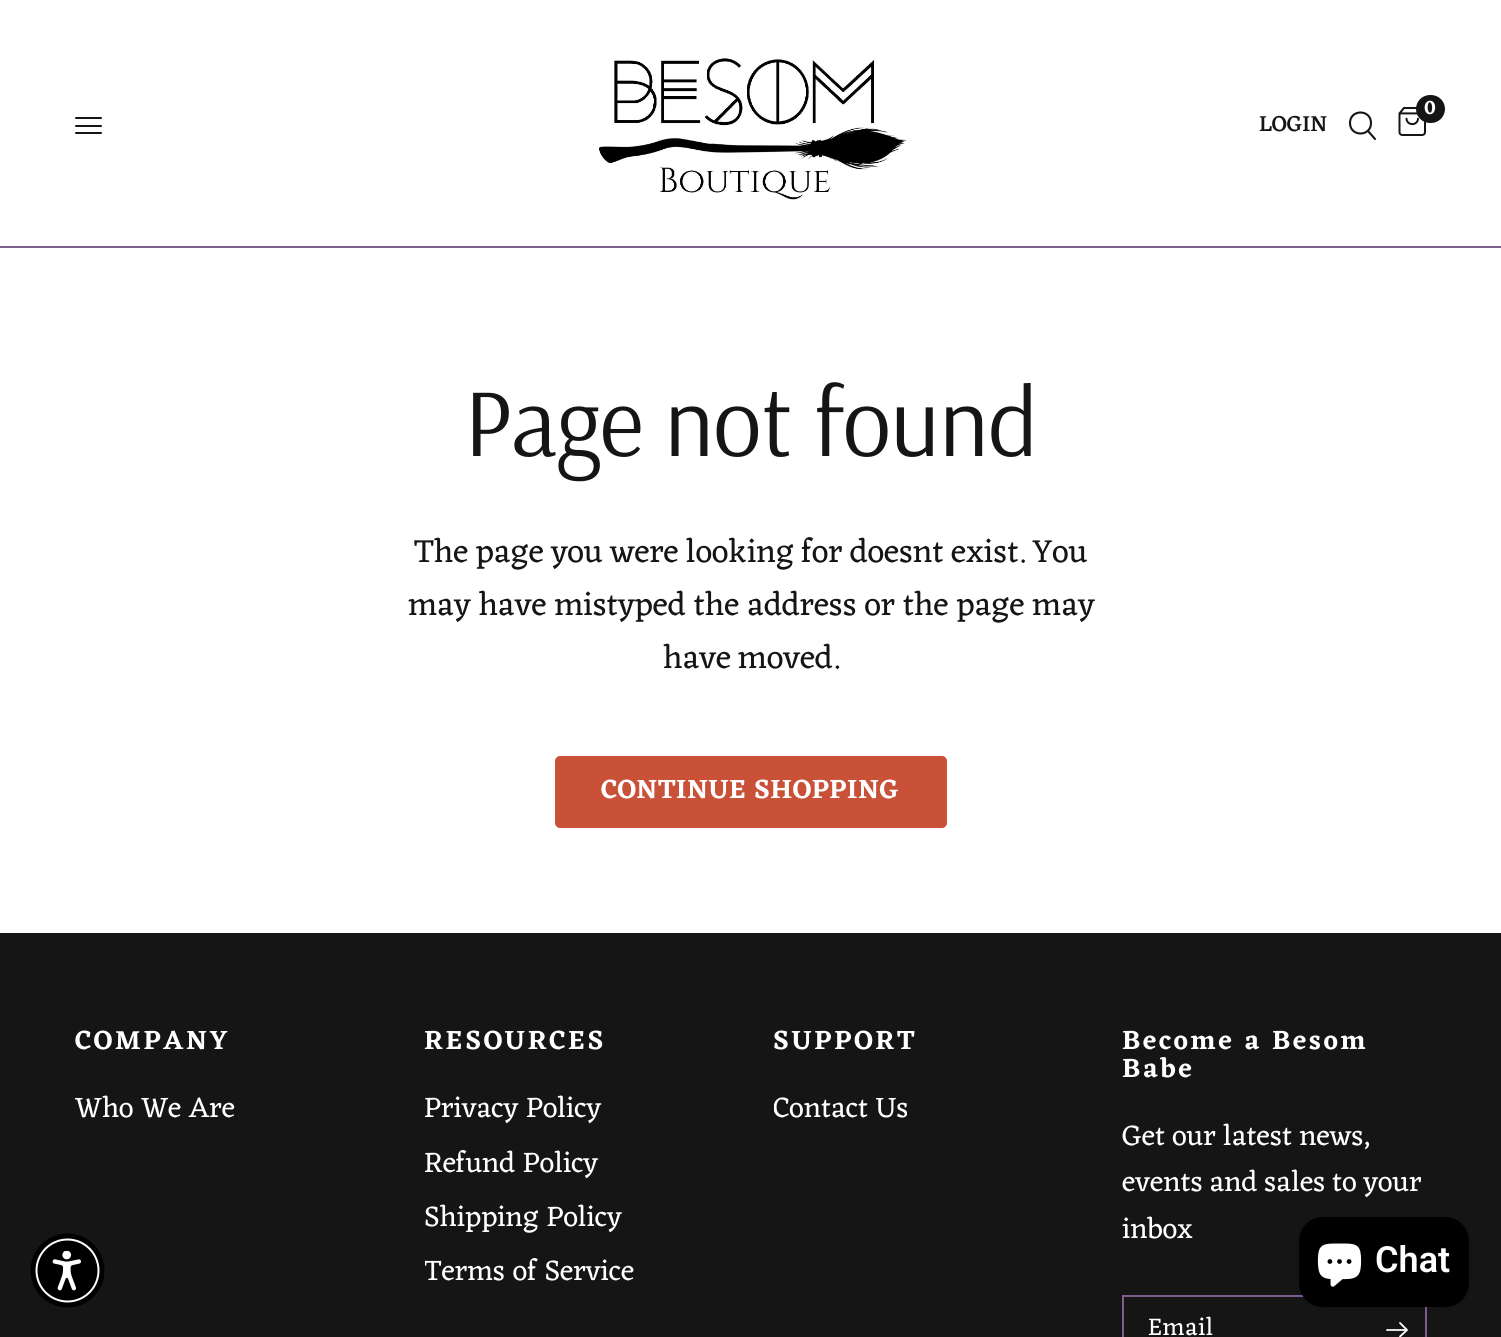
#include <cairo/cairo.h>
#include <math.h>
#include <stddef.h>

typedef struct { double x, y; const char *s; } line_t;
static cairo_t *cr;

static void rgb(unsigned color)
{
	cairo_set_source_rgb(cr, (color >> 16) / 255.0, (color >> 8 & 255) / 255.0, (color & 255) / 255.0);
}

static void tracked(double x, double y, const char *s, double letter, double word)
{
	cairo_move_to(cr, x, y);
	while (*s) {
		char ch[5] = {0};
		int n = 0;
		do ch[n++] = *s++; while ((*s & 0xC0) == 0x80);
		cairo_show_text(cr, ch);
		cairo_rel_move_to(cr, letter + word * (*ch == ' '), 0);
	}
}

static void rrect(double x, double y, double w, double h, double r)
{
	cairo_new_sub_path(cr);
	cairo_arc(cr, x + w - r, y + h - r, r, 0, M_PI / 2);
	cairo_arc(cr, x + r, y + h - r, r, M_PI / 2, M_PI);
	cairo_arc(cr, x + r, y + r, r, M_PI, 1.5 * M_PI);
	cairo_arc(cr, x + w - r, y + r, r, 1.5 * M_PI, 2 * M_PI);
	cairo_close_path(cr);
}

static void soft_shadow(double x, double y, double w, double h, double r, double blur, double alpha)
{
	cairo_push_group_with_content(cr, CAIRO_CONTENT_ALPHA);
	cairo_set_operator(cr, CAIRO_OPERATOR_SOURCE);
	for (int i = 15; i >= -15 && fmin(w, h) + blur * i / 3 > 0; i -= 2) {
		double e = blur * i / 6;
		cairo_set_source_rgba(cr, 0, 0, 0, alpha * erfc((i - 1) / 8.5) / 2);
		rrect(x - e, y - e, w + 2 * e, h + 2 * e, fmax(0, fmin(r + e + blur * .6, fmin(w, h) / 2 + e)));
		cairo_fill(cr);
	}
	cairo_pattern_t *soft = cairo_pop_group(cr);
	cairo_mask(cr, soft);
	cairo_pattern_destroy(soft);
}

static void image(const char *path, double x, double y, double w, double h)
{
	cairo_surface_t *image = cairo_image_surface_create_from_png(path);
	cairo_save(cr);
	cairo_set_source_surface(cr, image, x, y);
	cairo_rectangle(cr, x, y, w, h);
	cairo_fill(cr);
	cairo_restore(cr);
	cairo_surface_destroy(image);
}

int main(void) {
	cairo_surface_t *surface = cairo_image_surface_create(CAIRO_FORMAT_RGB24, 1501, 1337);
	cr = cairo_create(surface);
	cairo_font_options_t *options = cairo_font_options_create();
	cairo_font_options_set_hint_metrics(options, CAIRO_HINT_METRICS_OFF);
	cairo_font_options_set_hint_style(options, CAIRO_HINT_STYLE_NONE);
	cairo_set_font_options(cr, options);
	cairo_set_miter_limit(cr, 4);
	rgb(0xffffff);
	cairo_paint(cr);
	rgb(0x151515);
	cairo_rectangle(cr, 0, 933, 1501, 404);
	cairo_fill(cr);
	rgb(0x000000);
	cairo_arc(cr, 67.5, 1270.5, 37, 0, 2 * M_PI);
	cairo_fill(cr);
	rgb(0xffffff);
	cairo_arc(cr, 67.5, 1270.5, 32, 0, 2 * M_PI);
	cairo_fill(cr);
	rgb(0x000000);
	cairo_arc(cr, 67.5, 1270.5, 30, 0, 2 * M_PI);
	cairo_fill(cr);
	image("img/1.png", 52, 1251, 29, 40);
	rgb(0x805d8f);
	cairo_rectangle(cr, 0, 246, 1501, 2);
	cairo_fill(cr);
	rgb(0x151515);
	rrect(75, 117, 27, 2, 1);
	cairo_fill(cr);
	rrect(75, 125, 27, 2, 1);
	cairo_fill(cr);
	rrect(75, 132, 27, 2, 1);
	cairo_fill(cr);
	image("img/2.png", 599, 58, 308, 143);
	image("img/3.png", 1398, 107, 28, 29);
	rrect(1416, 95, 29, 28, 14);
	cairo_fill(cr);
	cairo_new_path(cr);
	cairo_move_to(cr, 1368, 131);
	cairo_line_to(cr, 1375, 139);
	cairo_move_to(cr, 1371, 123);
	cairo_curve_to(cr, 1371, 137, 1350, 137, 1350, 123);
	cairo_curve_to(cr, 1350, 109, 1371, 109, 1371, 123);
	cairo_close_path(cr);
	cairo_set_line_width(cr, 2.1);
	cairo_set_line_cap(cr, CAIRO_LINE_CAP_ROUND);
	cairo_set_line_join(cr, CAIRO_LINE_JOIN_ROUND);
	cairo_stroke(cr);
	rgb(0xc95137);
	rrect(556, 757, 390, 70, 4);
	cairo_fill_preserve(cr);
	cairo_set_line_width(cr, 2);
	cairo_set_line_cap(cr, CAIRO_LINE_CAP_BUTT);
	cairo_set_line_join(cr, CAIRO_LINE_JOIN_MITER);
	cairo_stroke(cr);
	cairo_rectangle(cr, 1123, 1296, 303, 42);
	rgb(0x805d8f);
	cairo_stroke(cr);
	cairo_new_path(cr);
	cairo_move_to(cr, 1387, 1330);
	cairo_line_to(cr, 1405, 1330);
	cairo_move_to(cr, 1400, 1323);
	cairo_line_to(cr, 1407, 1330);
	cairo_line_to(cr, 1400, 1336.5);
	rgb(0xffffff);
	cairo_set_line_width(cr, 1.8);
	cairo_set_line_cap(cr, CAIRO_LINE_CAP_ROUND);
	cairo_set_line_join(cr, CAIRO_LINE_JOIN_ROUND);
	cairo_stroke(cr);
	rgb(0x000000);
	soft_shadow(1299, 1217, 170, 90, 24, 4, 0.15);
	rgb(0x000000);
	rrect(1299, 1217, 170, 90, 24);
	cairo_fill(cr);
	image("img/4.png", 1317, 1243, 45, 44);
	cairo_select_font_face(cr, "Eczar SemiBold", CAIRO_FONT_SLANT_NORMAL, CAIRO_FONT_WEIGHT_NORMAL);
	cairo_set_font_size(cr, 20);
	rgb(0xffffff);
	cairo_move_to(cr, 1424, 114);
	cairo_show_text(cr, "0");
	cairo_select_font_face(cr, "Eczar Medium", CAIRO_FONT_SLANT_NORMAL, CAIRO_FONT_WEIGHT_NORMAL);
	cairo_set_font_size(cr, 22.5);
	rgb(0x151515);
	cairo_move_to(cr, 1259, 131);
	cairo_show_text(cr, "LOGIN");
	cairo_select_font_face(cr, "Arsenal", CAIRO_FONT_SLANT_NORMAL, CAIRO_FONT_WEIGHT_NORMAL);
	cairo_set_font_size(cr, 97.25);
	tracked(464, 456, "Page not found", -1, 0);
	cairo_select_font_face(cr, "Eczar", CAIRO_FONT_SLANT_NORMAL, CAIRO_FONT_WEIGHT_NORMAL);
	cairo_set_font_size(cr, 33.15);
	tracked(414, 562, "The page you were looking for doesnt exist. You", 0, -1.5);
	tracked(408, 615, "may have mistyped the address or the page may", 0, -1);
	tracked(663, 668, "have moved.", 0, -2);
	cairo_select_font_face(cr, "Eczar SemiBold", CAIRO_FONT_SLANT_NORMAL, CAIRO_FONT_WEIGHT_NORMAL);
	cairo_set_font_size(cr, 27.25);
	rgb(0xffffff);
	tracked(601, 798, "CONTINUE SHOPPING", 0.5, 0);
	tracked(75, 1049, "COMPANY", 2.75, 0);
	cairo_select_font_face(cr, "Eczar", CAIRO_FONT_SLANT_NORMAL, CAIRO_FONT_WEIGHT_NORMAL);
	cairo_set_font_size(cr, 29.25);
	cairo_move_to(cr, 75, 1117);
	cairo_show_text(cr, "Who We Are");
	cairo_select_font_face(cr, "Eczar SemiBold", CAIRO_FONT_SLANT_NORMAL, CAIRO_FONT_WEIGHT_NORMAL);
	cairo_set_font_size(cr, 27.25);
	tracked(424, 1049, "RESOURCES", 2.75, 0);
	cairo_select_font_face(cr, "Eczar", CAIRO_FONT_SLANT_NORMAL, CAIRO_FONT_WEIGHT_NORMAL);
	cairo_set_font_size(cr, 29.25);
	{
		static const line_t items[] = {
			{424, 1117, "Privacy Policy"},
			{424, 1172, "Refund Policy"},
			{424, 1226, "Shipping Policy"},
		};
		for (size_t i = 0; i < sizeof items / sizeof *items; i++) {
			cairo_move_to(cr, items[i].x, items[i].y);
			cairo_show_text(cr, items[i].s);
		}
	}
	cairo_save(cr);
	cairo_rectangle(cr, 425, 1088, 304, 210);
	cairo_clip(cr);
	cairo_move_to(cr, 424, 1280);
	cairo_show_text(cr, "Terms of Service");
	cairo_restore(cr);
	cairo_select_font_face(cr, "Eczar SemiBold", CAIRO_FONT_SLANT_NORMAL, CAIRO_FONT_WEIGHT_NORMAL);
	cairo_set_font_size(cr, 27.25);
	tracked(773, 1049, "SUPPORT", 2.75, 0);
	cairo_save(cr);
	cairo_rectangle(cr, 774, 1088, 303, 46);
	cairo_clip(cr);
	cairo_select_font_face(cr, "Eczar", CAIRO_FONT_SLANT_NORMAL, CAIRO_FONT_WEIGHT_NORMAL);
	cairo_set_font_size(cr, 29.25);
	cairo_move_to(cr, 773, 1117);
	cairo_show_text(cr, "Contact Us");
	cairo_restore(cr);
	tracked(1122, 1049, "Become a Besom", 2.75, 0);
	tracked(1122, 1077, "Babe", 2.75, 0);
	cairo_select_font_face(cr, "Eczar", CAIRO_FONT_SLANT_NORMAL, CAIRO_FONT_WEIGHT_NORMAL);
	cairo_set_font_size(cr, 29.25);
	tracked(1122, 1145, "Get our latest news,", 0, -0.5);
	tracked(1122, 1191, "events and sales to your", 0, -1);
	cairo_move_to(cr, 1122, 1238);
	cairo_show_text(cr, "inbox");
	cairo_set_font_size(cr, 25);
	tracked(1148, 1335, "Email", 0.5, 0);
	cairo_select_font_face(cr, "Roboto SemiBold", CAIRO_FONT_SLANT_NORMAL, CAIRO_FONT_WEIGHT_NORMAL);
	cairo_set_font_size(cr, 36);
	cairo_move_to(cr, 1375, 1272);
	cairo_show_text(cr, "Chat");
	cairo_surface_write_to_png(surface, "page.png");
	cairo_font_options_destroy(options);
	cairo_destroy(cr);
	cairo_surface_destroy(surface);
	return 0;
}
